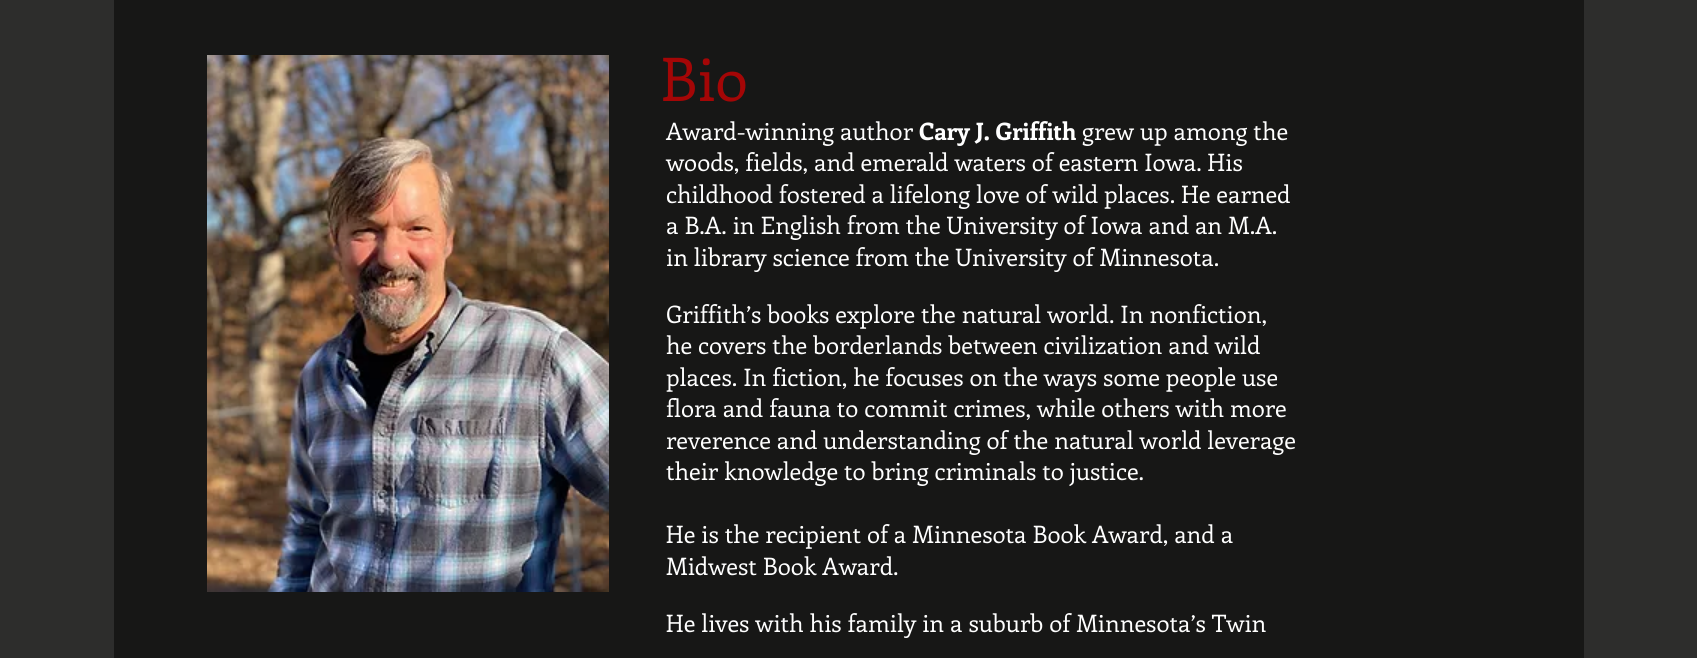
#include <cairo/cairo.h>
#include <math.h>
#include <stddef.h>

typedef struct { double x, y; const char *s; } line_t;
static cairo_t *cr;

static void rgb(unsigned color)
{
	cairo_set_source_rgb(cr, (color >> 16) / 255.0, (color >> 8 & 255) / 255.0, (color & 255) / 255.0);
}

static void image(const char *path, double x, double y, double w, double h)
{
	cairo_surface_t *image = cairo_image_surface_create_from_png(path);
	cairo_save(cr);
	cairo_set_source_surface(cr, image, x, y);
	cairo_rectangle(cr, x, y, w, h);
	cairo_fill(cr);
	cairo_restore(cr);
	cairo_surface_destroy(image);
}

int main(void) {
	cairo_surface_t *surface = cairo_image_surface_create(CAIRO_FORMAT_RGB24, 1697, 658);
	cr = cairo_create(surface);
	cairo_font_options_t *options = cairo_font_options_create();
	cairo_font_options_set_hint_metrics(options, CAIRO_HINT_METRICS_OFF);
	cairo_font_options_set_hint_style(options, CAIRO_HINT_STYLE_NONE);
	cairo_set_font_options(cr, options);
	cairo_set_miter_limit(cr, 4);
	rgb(0x2d2d2c);
	cairo_paint(cr);
	rgb(0x171716);
	cairo_rectangle(cr, 114, 0, 1470, 658);
	cairo_fill(cr);
	image("img/1.png", 207, 55, 402, 537);
	cairo_select_font_face(cr, "Enriqueta", CAIRO_FONT_SLANT_NORMAL, CAIRO_FONT_WEIGHT_NORMAL);
	cairo_set_font_size(cr, 60);
	rgb(0xa40606);
	cairo_move_to(cr, 660, 101);
	cairo_show_text(cr, "Bio");
	cairo_set_font_size(cr, 24);
	rgb(0xffffff);
	cairo_move_to(cr, 666, 140);
	cairo_show_text(cr, "Award-winning author");
	cairo_select_font_face(cr, "Enriqueta", CAIRO_FONT_SLANT_NORMAL, CAIRO_FONT_WEIGHT_BOLD);
	cairo_move_to(cr, 919, 140);
	cairo_show_text(cr, "Cary J. Griffith");
	cairo_select_font_face(cr, "Enriqueta", CAIRO_FONT_SLANT_NORMAL, CAIRO_FONT_WEIGHT_NORMAL);
	{
		static const line_t items[] = {
			{1082, 140, "grew up among the"},
			{666, 171, "woods, fields, and emerald waters of eastern Iowa. His"},
			{666, 203, "childhood fostered a lifelong love of wild places. He earned"},
			{666, 234, "a B.A. in English from the University of Iowa and an M.A."},
			{666, 266, "in library science from the University of Minnesota."},
			{666, 323, "Griffith’s books explore the natural world. In nonfiction,"},
			{666, 354, "he covers the borderlands between civilization and wild"},
			{666, 386, "places. In fiction, he focuses on the ways some people use"},
			{666, 417, "flora and fauna to commit crimes, while others with more"},
			{666, 449, "reverence and understanding of the natural world leverage"},
			{666, 480, "their knowledge to bring criminals to justice."},
			{666, 543, "He is the recipient of a Minnesota Book Award, and a"},
			{666, 575, "Midwest Book Award."},
			{666, 632, "He lives with his family in a suburb of Minnesota’s Twin"},
		};
		for (size_t i = 0; i < sizeof items / sizeof *items; i++) {
			cairo_move_to(cr, items[i].x, items[i].y);
			cairo_show_text(cr, items[i].s);
		}
	}
	cairo_surface_write_to_png(surface, "page.png");
	cairo_font_options_destroy(options);
	cairo_destroy(cr);
	cairo_surface_destroy(surface);
	return 0;
}
